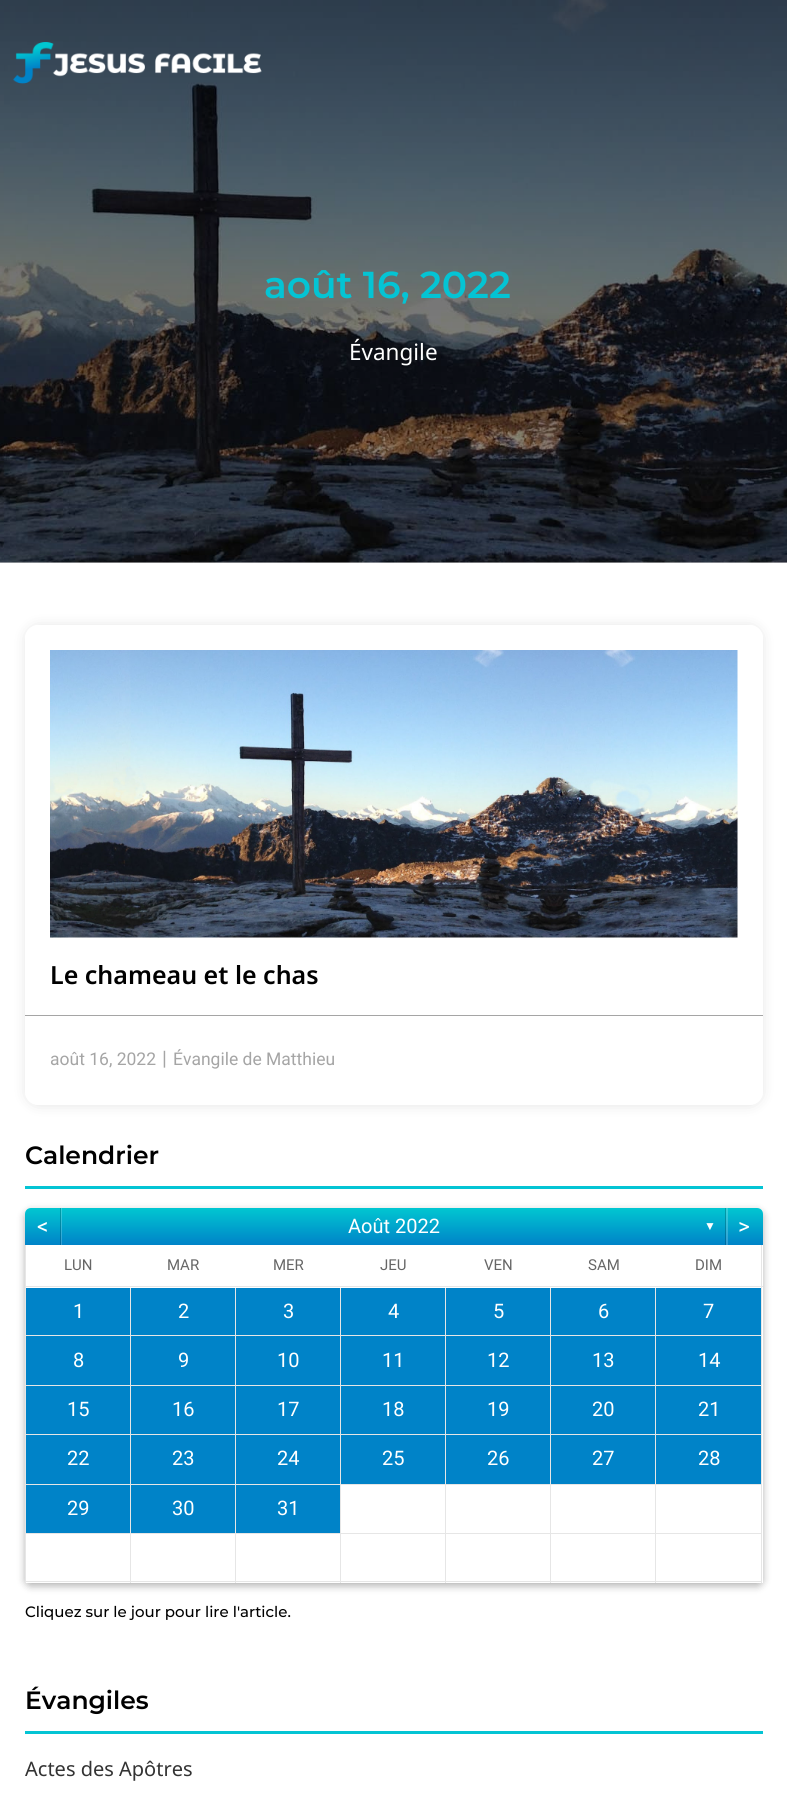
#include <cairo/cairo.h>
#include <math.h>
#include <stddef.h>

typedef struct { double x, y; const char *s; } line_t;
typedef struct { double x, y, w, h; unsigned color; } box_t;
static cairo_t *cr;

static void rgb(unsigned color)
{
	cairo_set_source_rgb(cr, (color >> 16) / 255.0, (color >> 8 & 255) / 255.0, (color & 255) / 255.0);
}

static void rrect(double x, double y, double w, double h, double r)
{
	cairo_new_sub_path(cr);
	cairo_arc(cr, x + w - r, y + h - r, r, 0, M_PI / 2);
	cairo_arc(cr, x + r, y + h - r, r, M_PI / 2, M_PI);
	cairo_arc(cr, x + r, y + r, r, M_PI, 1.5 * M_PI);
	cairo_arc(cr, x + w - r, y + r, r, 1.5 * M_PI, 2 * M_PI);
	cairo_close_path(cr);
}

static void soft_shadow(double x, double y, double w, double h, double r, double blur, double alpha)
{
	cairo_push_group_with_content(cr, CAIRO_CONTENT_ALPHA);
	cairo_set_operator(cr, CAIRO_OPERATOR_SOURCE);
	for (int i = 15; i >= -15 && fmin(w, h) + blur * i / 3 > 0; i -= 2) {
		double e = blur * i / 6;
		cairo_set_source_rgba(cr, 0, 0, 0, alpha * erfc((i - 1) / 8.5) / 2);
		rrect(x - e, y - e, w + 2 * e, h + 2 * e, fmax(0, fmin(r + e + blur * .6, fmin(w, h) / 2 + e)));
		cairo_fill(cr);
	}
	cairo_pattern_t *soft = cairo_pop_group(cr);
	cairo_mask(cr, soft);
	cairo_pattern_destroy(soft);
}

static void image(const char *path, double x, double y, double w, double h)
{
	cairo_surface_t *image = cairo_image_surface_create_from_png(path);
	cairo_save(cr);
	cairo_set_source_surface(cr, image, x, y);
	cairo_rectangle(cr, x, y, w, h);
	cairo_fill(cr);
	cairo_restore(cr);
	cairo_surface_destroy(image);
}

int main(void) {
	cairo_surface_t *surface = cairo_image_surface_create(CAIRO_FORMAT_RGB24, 787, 1797);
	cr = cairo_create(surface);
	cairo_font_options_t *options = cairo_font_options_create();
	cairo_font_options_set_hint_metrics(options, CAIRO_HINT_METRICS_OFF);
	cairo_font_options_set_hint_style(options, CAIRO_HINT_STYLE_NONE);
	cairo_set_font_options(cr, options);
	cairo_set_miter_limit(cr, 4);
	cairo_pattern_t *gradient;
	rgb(0xffffff);
	cairo_paint(cr);
	image("img/1.png", 0, 0, 787, 563);
	gradient = cairo_pattern_create_linear(394, 0, 394, 563);
	cairo_pattern_add_color_stop_rgba(gradient, 0, 0, 0, 0, 0.5);
	cairo_pattern_add_color_stop_rgba(gradient, 1, 0, 0, 0, 0.13);
	cairo_set_source(cr, gradient);
	cairo_pattern_destroy(gradient);
	cairo_rectangle(cr, 0, 0, 787, 563);
	cairo_fill(cr);
	image("img/2.png", 13, 42, 249, 42);
	cairo_save(cr);
	cairo_set_fill_rule(cr, CAIRO_FILL_RULE_EVEN_ODD);
	cairo_new_path(cr);
	cairo_move_to(cr, 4, 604);
	cairo_line_to(cr, 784, 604);
	cairo_line_to(cr, 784, 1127);
	cairo_line_to(cr, 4, 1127);
	cairo_close_path(cr);
	cairo_move_to(cr, 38, 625);
	cairo_line_to(cr, 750, 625);
	cairo_curve_to(cr, 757, 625, 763, 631, 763, 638);
	cairo_line_to(cr, 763, 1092);
	cairo_curve_to(cr, 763, 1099, 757, 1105, 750, 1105);
	cairo_line_to(cr, 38, 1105);
	cairo_curve_to(cr, 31, 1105, 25, 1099, 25, 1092);
	cairo_line_to(cr, 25, 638);
	cairo_curve_to(cr, 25, 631, 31, 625, 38, 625);
	cairo_close_path(cr);
	cairo_clip(cr);
	rgb(0x000000);
	soft_shadow(28, 628, 732, 475, 10, 7.5, 0.14);
	cairo_restore(cr);
	image("img/3.png", 50, 650, 688, 288);
	rgb(0xa5a5a5);
	cairo_rectangle(cr, 25, 1015, 738, 1);
	cairo_fill(cr);
	rgb(0x04c4d4);
	cairo_rectangle(cr, 25, 1186, 738, 3);
	cairo_fill(cr);
	cairo_save(cr);
	cairo_set_fill_rule(cr, CAIRO_FILL_RULE_EVEN_ODD);
	cairo_new_path(cr);
	cairo_move_to(cr, 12, 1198);
	cairo_line_to(cr, 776, 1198);
	cairo_line_to(cr, 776, 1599);
	cairo_line_to(cr, 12, 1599);
	cairo_close_path(cr);
	cairo_move_to(cr, 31, 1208);
	cairo_line_to(cr, 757, 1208);
	cairo_curve_to(cr, 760.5, 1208, 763, 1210.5, 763, 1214);
	cairo_line_to(cr, 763, 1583);
	cairo_line_to(cr, 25, 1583);
	cairo_line_to(cr, 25, 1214);
	cairo_curve_to(cr, 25, 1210.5, 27.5, 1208, 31, 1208);
	cairo_close_path(cr);
	cairo_clip(cr);
	rgb(0x000000);
	soft_shadow(25, 1211, 738, 375, 6, 4, 0.3);
	cairo_restore(cr);
	gradient = cairo_pattern_create_linear(394, 1208, 394, 1245);
	cairo_pattern_add_color_stop_rgba(gradient, 0, 0.004, 0.78, 0.82, 1);
	cairo_pattern_add_color_stop_rgba(gradient, 1, 0, 0.514, 0.784, 1);
	cairo_set_source(cr, gradient);
	cairo_pattern_destroy(gradient);
	cairo_new_path(cr);
	cairo_move_to(cr, 31, 1208);
	cairo_line_to(cr, 757, 1208);
	cairo_curve_to(cr, 760.5, 1208, 763, 1210.5, 763, 1214);
	cairo_line_to(cr, 763, 1245);
	cairo_line_to(cr, 25, 1245);
	cairo_line_to(cr, 25, 1214);
	cairo_curve_to(cr, 25, 1210.5, 27.5, 1208, 31, 1208);
	cairo_close_path(cr);
	cairo_fill(cr);
	gradient = cairo_pattern_create_linear(394, 1208, 394, 1245);
	cairo_pattern_add_color_stop_rgba(gradient, 0, 0.004, 0.624, 0.655, 1);
	cairo_pattern_add_color_stop_rgba(gradient, 1, 0, 0.412, 0.627, 1);
	cairo_set_source(cr, gradient);
	cairo_pattern_destroy(gradient);
	cairo_rectangle(cr, 725, 1208, 1, 37);
	cairo_fill(cr);
	gradient = cairo_pattern_create_linear(394, 1208, 394, 1245);
	cairo_pattern_add_color_stop_rgba(gradient, 0, 0.204, 0.824, 0.855, 1);
	cairo_pattern_add_color_stop_rgba(gradient, 1, 0.2, 0.612, 0.827, 1);
	cairo_set_source(cr, gradient);
	cairo_pattern_destroy(gradient);
	cairo_rectangle(cr, 726, 1208, 2, 37);
	cairo_fill(cr);
	cairo_rectangle(cr, 61, 1208, 1, 37);
	cairo_fill(cr);
	gradient = cairo_pattern_create_linear(394, 1208, 394, 1245);
	cairo_pattern_add_color_stop_rgba(gradient, 0, 0.004, 0.624, 0.655, 1);
	cairo_pattern_add_color_stop_rgba(gradient, 1, 0, 0.412, 0.627, 1);
	cairo_set_source(cr, gradient);
	cairo_pattern_destroy(gradient);
	cairo_rectangle(cr, 60, 1208, 1, 37);
	cairo_fill(cr);
	{
		static const box_t items[] = {
			{761, 1245, 1, 41, 0xe6e6e6},
			{25, 1245, 1, 41, 0xe6e6e6},
			{25, 1286, 738, 1, 0xe6e6e6},
			{761, 1286, 1, 297, 0xe6e6e6},
			{25, 1286, 1, 297, 0xe6e6e6},
			{130, 1288, 1, 295, 0xe6e6e6},
			{26, 1335, 105, 1, 0xe6e6e6},
			{26, 1288, 104, 47, 0x0083c8},
			{235, 1288, 1, 295, 0xe6e6e6},
			{131, 1335, 105, 1, 0xe6e6e6},
			{131, 1288, 104, 47, 0x0083c8},
			{340, 1288, 1, 295, 0xe6e6e6},
			{236, 1335, 105, 1, 0xe6e6e6},
			{236, 1288, 104, 47, 0x0083c8},
			{445, 1288, 1, 295, 0xe6e6e6},
			{341, 1335, 105, 1, 0xe6e6e6},
			{341, 1288, 104, 47, 0x0083c8},
			{550, 1288, 1, 295, 0xe6e6e6},
			{446, 1335, 105, 1, 0xe6e6e6},
			{446, 1288, 104, 47, 0x0083c8},
			{655, 1288, 1, 295, 0xe6e6e6},
			{551, 1335, 210, 1, 0xe6e6e6},
			{551, 1288, 104, 47, 0x0083c8},
			{656, 1288, 105, 47, 0x0083c8},
			{26, 1385, 735, 1, 0xe6e6e6},
			{26, 1336, 104, 49, 0x0083c8},
			{131, 1336, 104, 49, 0x0083c8},
			{236, 1336, 104, 49, 0x0083c8},
			{341, 1336, 104, 49, 0x0083c8},
			{446, 1336, 104, 49, 0x0083c8},
			{551, 1336, 104, 49, 0x0083c8},
			{656, 1336, 105, 49, 0x0083c8},
			{26, 1434, 735, 1, 0xe6e6e6},
			{26, 1386, 104, 48, 0x0083c8},
			{131, 1386, 104, 48, 0x0083c8},
			{236, 1386, 104, 48, 0x0083c8},
			{341, 1386, 104, 48, 0x0083c8},
			{446, 1386, 104, 48, 0x0083c8},
			{551, 1386, 104, 48, 0x0083c8},
			{656, 1386, 105, 48, 0x0083c8},
			{26, 1484, 735, 1, 0xe6e6e6},
			{26, 1435, 104, 49, 0x0083c8},
			{131, 1435, 104, 49, 0x0083c8},
			{236, 1435, 104, 49, 0x0083c8},
			{341, 1435, 104, 49, 0x0083c8},
			{446, 1435, 104, 49, 0x0083c8},
			{551, 1435, 104, 49, 0x0083c8},
			{656, 1435, 105, 49, 0x0083c8},
			{26, 1533, 735, 1, 0xe6e6e6},
			{26, 1485, 104, 48, 0x0083c8},
			{131, 1485, 104, 48, 0x0083c8},
			{236, 1485, 104, 48, 0x0083c8},
			{26, 1581, 735, 1, 0xe6e6e6},
			{25, 1731, 738, 3, 0x04c4d4},
		};
		for (size_t i = 0; i < sizeof items / sizeof *items; i++) {
			rgb(items[i].color);
			cairo_rectangle(cr, items[i].x, items[i].y, items[i].w, items[i].h);
			cairo_fill(cr);
		}
	}
	cairo_select_font_face(cr, "Montserrat SemiBold", CAIRO_FONT_SLANT_NORMAL, CAIRO_FONT_WEIGHT_NORMAL);
	cairo_set_font_size(cr, 37.5);
	cairo_move_to(cr, 264, 298);
	cairo_show_text(cr, "août 16, 2022");
	cairo_select_font_face(cr, "Noto Sans", CAIRO_FONT_SLANT_NORMAL, CAIRO_FONT_WEIGHT_NORMAL);
	cairo_set_font_size(cr, 22.5);
	rgb(0xffffff);
	cairo_move_to(cr, 349, 360);
	cairo_show_text(cr, "Évangile");
	cairo_select_font_face(cr, "Noto Sans SemiBold", CAIRO_FONT_SLANT_NORMAL, CAIRO_FONT_WEIGHT_NORMAL);
	cairo_set_font_size(cr, 25);
	rgb(0x000000);
	cairo_move_to(cr, 50, 984);
	cairo_show_text(cr, "Le chameau et le chas");
	cairo_select_font_face(cr, "Roboto", CAIRO_FONT_SLANT_NORMAL, CAIRO_FONT_WEIGHT_NORMAL);
	cairo_set_font_size(cr, 17.5);
	rgb(0xa5a5a5);
	cairo_move_to(cr, 50, 1065);
	cairo_show_text(cr, "août 16, 2022");
	cairo_set_font_size(cr, 20);
	cairo_move_to(cr, 162, 1065);
	cairo_show_text(cr, "|");
	cairo_set_font_size(cr, 17.5);
	cairo_move_to(cr, 173, 1065);
	cairo_show_text(cr, "Évangile de Matthieu");
	cairo_select_font_face(cr, "Montserrat SemiBold", CAIRO_FONT_SLANT_NORMAL, CAIRO_FONT_WEIGHT_NORMAL);
	cairo_set_font_size(cr, 25);
	rgb(0x000000);
	cairo_move_to(cr, 25, 1164);
	cairo_show_text(cr, "Calendrier");
	cairo_select_font_face(cr, "Roboto", CAIRO_FONT_SLANT_NORMAL, CAIRO_FONT_WEIGHT_NORMAL);
	cairo_set_font_size(cr, 22.5);
	rgb(0xffffff);
	cairo_move_to(cr, 37, 1234);
	cairo_show_text(cr, "<");
	cairo_set_font_size(cr, 20);
	cairo_move_to(cr, 348, 1233);
	cairo_show_text(cr, "Août 2022");
	cairo_select_font_face(cr, "Liberation Sans", CAIRO_FONT_SLANT_NORMAL, CAIRO_FONT_WEIGHT_NORMAL);
	cairo_set_font_size(cr, 12);
	cairo_move_to(cr, 704, 1230);
	cairo_show_text(cr, "▼");
	cairo_select_font_face(cr, "Roboto", CAIRO_FONT_SLANT_NORMAL, CAIRO_FONT_WEIGHT_NORMAL);
	cairo_set_font_size(cr, 22.5);
	cairo_move_to(cr, 738, 1234);
	cairo_show_text(cr, ">");
	cairo_set_font_size(cr, 15);
	rgb(0x666666);
	{
		static const line_t items[] = {
			{64, 1270, "LUN"},
			{167, 1270, "MAR"},
			{273, 1270, "MER"},
			{380, 1270, "JEU"},
			{484, 1270, "VEN"},
			{588, 1270, "SAM"},
			{695, 1270, "DIM"},
		};
		for (size_t i = 0; i < sizeof items / sizeof *items; i++) {
			cairo_move_to(cr, items[i].x, items[i].y);
			cairo_show_text(cr, items[i].s);
		}
	}
	cairo_set_font_size(cr, 20);
	rgb(0xffffff);
	{
		static const line_t items[] = {
			{73, 1318, "1"},
			{178, 1318, "2"},
			{283, 1318, "3"},
			{388, 1318, "4"},
			{493, 1318, "5"},
			{598, 1318, "6"},
			{703, 1318, "7"},
			{73, 1367, "8"},
			{178, 1367, "9"},
			{277, 1367, "10"},
			{382, 1367, "11"},
			{487, 1367, "12"},
			{592, 1367, "13"},
			{698, 1367, "14"},
			{67, 1416, "15"},
			{172, 1416, "16"},
			{277, 1416, "17"},
			{382, 1416, "18"},
			{487, 1416, "19"},
			{592, 1416, "20"},
			{698, 1416, "21"},
			{67, 1465, "22"},
			{172, 1465, "23"},
			{277, 1465, "24"},
			{382, 1465, "25"},
			{487, 1465, "26"},
			{592, 1465, "27"},
			{698, 1465, "28"},
			{67, 1515, "29"},
			{172, 1515, "30"},
			{277, 1515, "31"},
		};
		for (size_t i = 0; i < sizeof items / sizeof *items; i++) {
			cairo_move_to(cr, items[i].x, items[i].y);
			cairo_show_text(cr, items[i].s);
		}
	}
	cairo_select_font_face(cr, "Montserrat Medium", CAIRO_FONT_SLANT_NORMAL, CAIRO_FONT_WEIGHT_NORMAL);
	cairo_set_font_size(cr, 15);
	rgb(0x000000);
	cairo_move_to(cr, 25, 1617);
	cairo_show_text(cr, "Cliquez sur le jour pour lire l'article.");
	cairo_select_font_face(cr, "Montserrat SemiBold", CAIRO_FONT_SLANT_NORMAL, CAIRO_FONT_WEIGHT_NORMAL);
	cairo_set_font_size(cr, 25);
	cairo_move_to(cr, 25, 1709);
	cairo_show_text(cr, "Évangiles");
	cairo_select_font_face(cr, "Noto Sans", CAIRO_FONT_SLANT_NORMAL, CAIRO_FONT_WEIGHT_NORMAL);
	cairo_set_font_size(cr, 20);
	rgb(0x333333);
	cairo_move_to(cr, 25, 1776);
	cairo_show_text(cr, "Actes des Apôtres");
	cairo_surface_write_to_png(surface, "page.png");
	cairo_font_options_destroy(options);
	cairo_destroy(cr);
	cairo_surface_destroy(surface);
	return 0;
}
